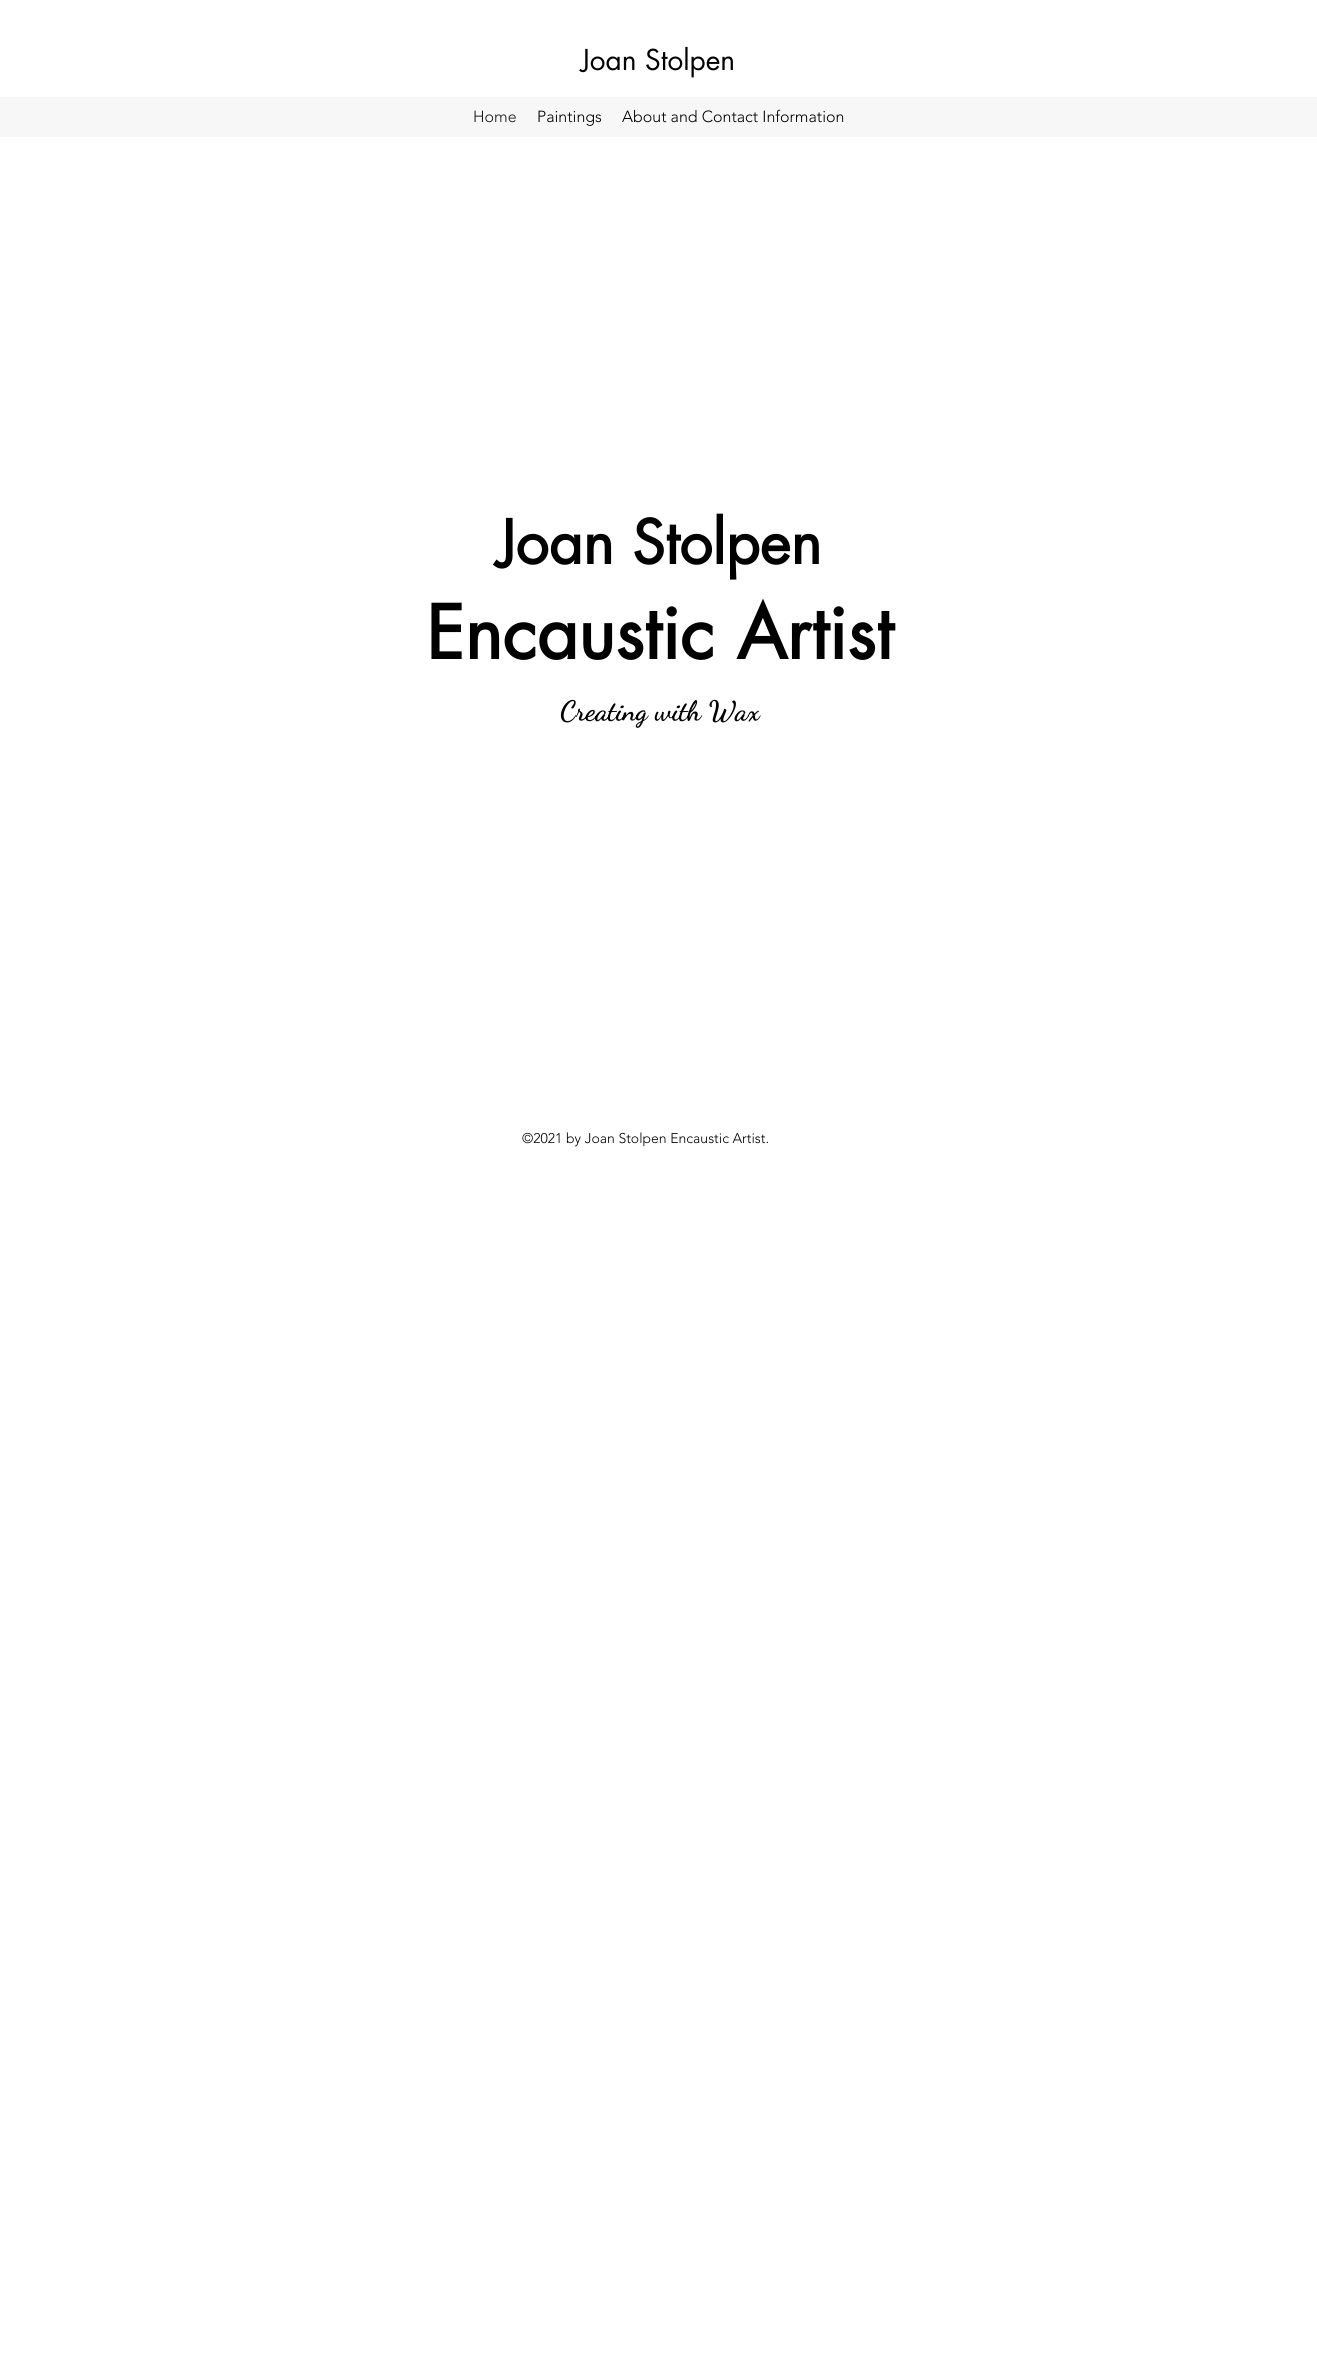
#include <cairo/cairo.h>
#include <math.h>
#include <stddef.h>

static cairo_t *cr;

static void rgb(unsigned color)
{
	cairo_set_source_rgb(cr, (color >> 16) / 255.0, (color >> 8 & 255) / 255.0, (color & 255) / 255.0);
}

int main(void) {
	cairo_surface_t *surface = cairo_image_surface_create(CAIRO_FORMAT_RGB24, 1317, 2356);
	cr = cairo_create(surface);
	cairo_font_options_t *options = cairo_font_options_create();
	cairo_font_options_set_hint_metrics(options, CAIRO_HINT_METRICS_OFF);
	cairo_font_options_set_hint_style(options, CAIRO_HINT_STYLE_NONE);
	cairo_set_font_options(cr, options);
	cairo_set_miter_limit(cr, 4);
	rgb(0xffffff);
	cairo_paint(cr);
	rgb(0xf7f7f7);
	cairo_rectangle(cr, 0, 97, 1317, 40);
	cairo_fill(cr);
	cairo_select_font_face(cr, "futura", CAIRO_FONT_SLANT_NORMAL, CAIRO_FONT_WEIGHT_NORMAL);
	cairo_set_font_size(cr, 28);
	rgb(0x000000);
	cairo_move_to(cr, 581, 70);
	cairo_show_text(cr, "Joan Stolpen");
	cairo_select_font_face(cr, "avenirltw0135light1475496 Light", CAIRO_FONT_SLANT_NORMAL, CAIRO_FONT_WEIGHT_NORMAL);
	cairo_set_font_size(cr, 16);
	rgb(0x191919);
	cairo_move_to(cr, 473, 122);
	cairo_show_text(cr, "Home");
	rgb(0x000000);
	cairo_move_to(cr, 537, 122);
	cairo_show_text(cr, "Paintings");
	cairo_move_to(cr, 622, 122);
	cairo_show_text(cr, "About and Contact Information");
	cairo_select_font_face(cr, "futura", CAIRO_FONT_SLANT_NORMAL, CAIRO_FONT_WEIGHT_BOLD);
	cairo_set_font_size(cr, 59);
	cairo_move_to(cr, 497, 564);
	cairo_show_text(cr, "Joan Stolpen");
	cairo_set_font_size(cr, 72);
	cairo_move_to(cr, 426, 659);
	cairo_show_text(cr, "Encaustic Artist");
	cairo_select_font_face(cr, "Dancing Script", CAIRO_FONT_SLANT_NORMAL, CAIRO_FONT_WEIGHT_BOLD);
	cairo_set_font_size(cr, 28);
	cairo_move_to(cr, 560, 720);
	cairo_show_text(cr, "Creating with Wax");
	cairo_select_font_face(cr, "avenirltw0135light1475496 Light", CAIRO_FONT_SLANT_NORMAL, CAIRO_FONT_WEIGHT_NORMAL);
	cairo_set_font_size(cr, 14);
	cairo_move_to(cr, 522, 1143);
	cairo_show_text(cr, "©2021 by Joan Stolpen Encaustic Artist.");
	cairo_surface_write_to_png(surface, "page.png");
	cairo_font_options_destroy(options);
	cairo_destroy(cr);
	cairo_surface_destroy(surface);
	return 0;
}
